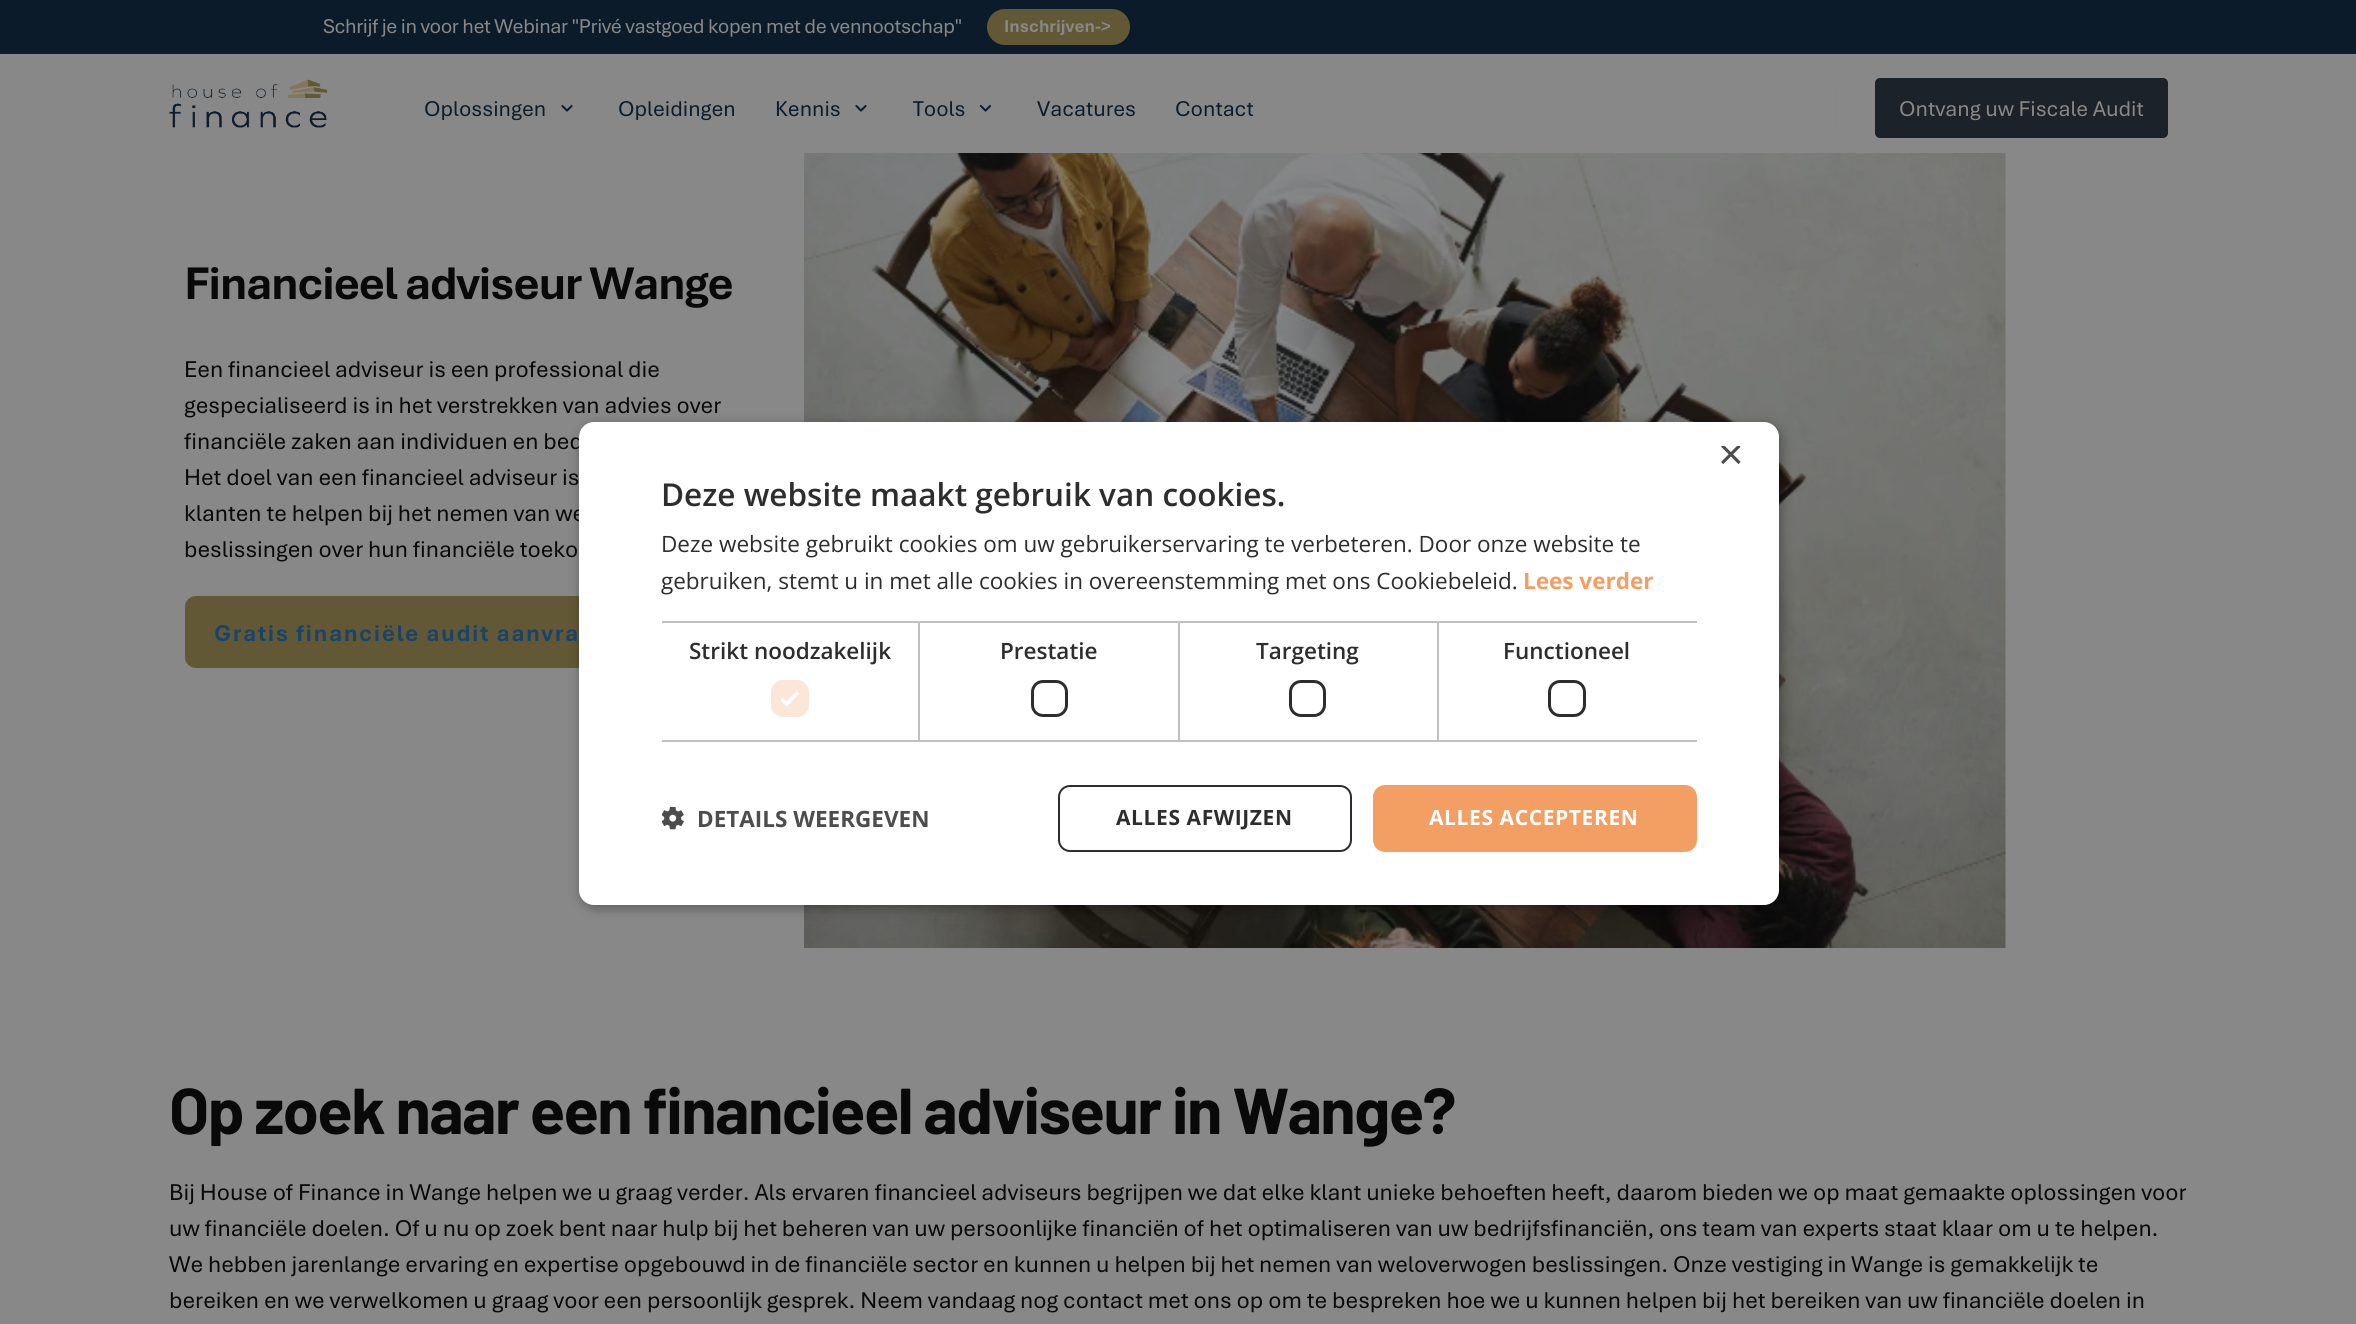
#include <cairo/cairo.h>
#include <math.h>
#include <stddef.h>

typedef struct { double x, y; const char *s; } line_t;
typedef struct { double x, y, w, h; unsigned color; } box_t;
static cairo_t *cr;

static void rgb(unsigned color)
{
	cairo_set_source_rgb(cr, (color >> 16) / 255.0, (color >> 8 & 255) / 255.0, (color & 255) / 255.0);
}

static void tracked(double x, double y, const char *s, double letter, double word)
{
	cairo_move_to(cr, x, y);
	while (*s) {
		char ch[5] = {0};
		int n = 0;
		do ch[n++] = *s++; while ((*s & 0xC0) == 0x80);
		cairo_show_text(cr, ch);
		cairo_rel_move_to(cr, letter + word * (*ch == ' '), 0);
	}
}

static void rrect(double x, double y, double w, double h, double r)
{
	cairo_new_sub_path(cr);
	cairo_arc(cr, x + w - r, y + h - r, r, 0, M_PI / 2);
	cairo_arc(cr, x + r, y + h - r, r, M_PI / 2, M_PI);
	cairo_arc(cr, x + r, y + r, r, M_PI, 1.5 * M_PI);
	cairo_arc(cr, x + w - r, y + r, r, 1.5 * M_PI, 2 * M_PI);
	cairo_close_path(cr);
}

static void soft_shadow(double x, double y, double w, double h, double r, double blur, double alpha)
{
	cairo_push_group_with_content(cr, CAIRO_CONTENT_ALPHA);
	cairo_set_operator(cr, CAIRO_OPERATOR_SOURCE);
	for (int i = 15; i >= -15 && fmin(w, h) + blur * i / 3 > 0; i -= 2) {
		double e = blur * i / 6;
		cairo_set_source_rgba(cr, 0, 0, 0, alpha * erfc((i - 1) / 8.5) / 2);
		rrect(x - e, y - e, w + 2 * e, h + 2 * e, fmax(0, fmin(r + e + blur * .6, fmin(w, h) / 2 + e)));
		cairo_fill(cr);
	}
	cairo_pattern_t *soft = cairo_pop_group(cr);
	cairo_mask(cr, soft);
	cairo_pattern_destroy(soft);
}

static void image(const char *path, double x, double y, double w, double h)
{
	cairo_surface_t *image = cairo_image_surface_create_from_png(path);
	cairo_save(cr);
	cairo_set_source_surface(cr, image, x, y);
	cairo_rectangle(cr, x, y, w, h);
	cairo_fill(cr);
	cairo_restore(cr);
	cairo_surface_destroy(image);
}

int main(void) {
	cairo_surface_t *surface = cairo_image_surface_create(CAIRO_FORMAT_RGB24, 2356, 1324);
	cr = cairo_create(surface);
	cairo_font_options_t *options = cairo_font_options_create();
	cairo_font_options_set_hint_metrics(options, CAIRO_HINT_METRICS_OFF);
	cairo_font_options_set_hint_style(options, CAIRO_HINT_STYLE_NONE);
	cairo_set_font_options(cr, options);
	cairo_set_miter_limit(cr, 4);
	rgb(0x888888);
	cairo_paint(cr);
	rgb(0x0c1b2a);
	cairo_rectangle(cr, 0, 0, 2356, 54);
	cairo_fill(cr);
	rgb(0x635835);
	rrect(987, 9, 143, 36, 18);
	cairo_fill(cr);
	image("img/1.png", 169, 79, 159, 49);
	image("img/2.png", 561, 105, 12, 7);
	image("img/2.png", 855, 105, 12, 7);
	image("img/3.png", 979, 105, 12, 7);
	rgb(0x848688);
	cairo_rectangle(cr, 1835, 87, 2, 42);
	cairo_fill(cr);
	rgb(0x1c2229);
	rrect(1875, 78, 293, 60, 5);
	cairo_fill(cr);
	rgb(0x635835);
	rrect(185, 596, 469, 72, 11);
	cairo_fill(cr);
	image("img/4.png", 804, 153, 1202, 795);
	rgb(0x000000);
	soft_shadow(581, 425, 1200, 483, 15, 6, 0.35);
	cairo_select_font_face(cr, "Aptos", CAIRO_FONT_SLANT_NORMAL, CAIRO_FONT_WEIGHT_NORMAL);
	cairo_set_font_size(cr, 21);
	rgb(0x888888);
	tracked(323, 33, "Schrijf je in voor het Webinar \"Privé vastgoed kopen met de vennootschap\"", -0.42, 0);
	cairo_select_font_face(cr, "Aptos", CAIRO_FONT_SLANT_NORMAL, CAIRO_FONT_WEIGHT_BOLD);
	cairo_set_font_size(cr, 18);
	cairo_move_to(cr, 1004, 32);
	cairo_show_text(cr, "Inschrijven->");
	cairo_select_font_face(cr, "Aptos", CAIRO_FONT_SLANT_NORMAL, CAIRO_FONT_WEIGHT_NORMAL);
	cairo_set_font_size(cr, 22.5);
	rgb(0x0c1c2a);
	{
		static const line_t items[] = {
			{424, 116, "Oplossingen"},
			{618, 116, "Opleidingen"},
			{775, 116, "Kennis"},
			{913, 116, "Tools"},
			{1037, 116, "Vacatures"},
			{1175, 116, "Contact"},
		};
		for (size_t i = 0; i < sizeof items / sizeof *items; i++) {
			cairo_move_to(cr, items[i].x, items[i].y);
			cairo_show_text(cr, items[i].s);
		}
	}
	rgb(0x888888);
	cairo_move_to(cr, 1899, 116);
	cairo_show_text(cr, "Ontvang uw Fiscale Audit");
	cairo_select_font_face(cr, "Aptos", CAIRO_FONT_SLANT_NORMAL, CAIRO_FONT_WEIGHT_BOLD);
	cairo_set_font_size(cr, 48);
	rgb(0x090909);
	tracked(184, 299, "Financieel adviseur Wange", -1.5, 0);
	cairo_select_font_face(cr, "Aptos", CAIRO_FONT_SLANT_NORMAL, CAIRO_FONT_WEIGHT_NORMAL);
	cairo_set_font_size(cr, 24);
	{
		static const line_t items[] = {
			{184, 377, "Een financieel adviseur is een professional die"},
			{184, 413, "gespecialiseerd is in het verstrekken van advies over"},
			{184, 449, "financiële zaken aan individuen en bed"},
			{184, 485, "Het doel van een financieel adviseur is"},
			{184, 521, "klanten te helpen bij het nemen van we"},
			{184, 557, "beslissingen over hun financiële toeko"},
		};
		for (size_t i = 0; i < sizeof items / sizeof *items; i++) {
			cairo_move_to(cr, items[i].x, items[i].y);
			cairo_show_text(cr, items[i].s);
		}
	}
	cairo_select_font_face(cr, "Aptos", CAIRO_FONT_SLANT_NORMAL, CAIRO_FONT_WEIGHT_BOLD);
	rgb(0x18446c);
	tracked(214, 641, "Gratis financiële audit aanvra", 1.5, 0);
	cairo_select_font_face(cr, "Barlow", CAIRO_FONT_SLANT_NORMAL, CAIRO_FONT_WEIGHT_BOLD);
	cairo_set_font_size(cr, 64.75);
	rgb(0x090909);
	tracked(169, 1134, "Op zoek naar een financieel adviseur", -1.5, 0);
	tracked(1172, 1134, "in Wange?", -1.5, 0);
	cairo_select_font_face(cr, "Aptos", CAIRO_FONT_SLANT_NORMAL, CAIRO_FONT_WEIGHT_NORMAL);
	cairo_set_font_size(cr, 24);
	{
		static const line_t items[] = {
			{169, 1200, "Bij House of Finance in Wange helpen we u graag verder. Als ervaren financieel adviseurs begrijpen we dat elke klant unieke behoeften heeft, daarom bieden we op maat gemaakte oplossingen voor"},
			{169, 1236, "uw financiële doelen. Of u nu op zoek bent naar hulp bij het beheren van uw persoonlijke financiën of het optimaliseren van uw bedrijfsfinanciën, ons team van experts staat klaar om u te helpen."},
			{169, 1272, "We hebben jarenlange ervaring en expertise opgebouwd in de financiële sector en kunnen u helpen bij het nemen van weloverwogen beslissingen. Onze vestiging in Wange is gemakkelijk te"},
			{169, 1308, "bereiken en we verwelkomen u graag voor een persoonlijk gesprek. Neem vandaag nog contact met ons op om te bespreken hoe we u kunnen helpen bij het bereiken van uw financiële doelen in"},
		};
		for (size_t i = 0; i < sizeof items / sizeof *items; i++) {
			cairo_move_to(cr, items[i].x, items[i].y);
			cairo_show_text(cr, items[i].s);
		}
	}
	rgb(0xffffff);
	rrect(579, 422, 1200, 483, 15);
	cairo_fill(cr);
	cairo_save(cr);
	cairo_rectangle(cr, 1719, 446, 23, 22);
	cairo_clip(cr);
	cairo_select_font_face(cr, "Liberation Sans", CAIRO_FONT_SLANT_NORMAL, CAIRO_FONT_WEIGHT_NORMAL);
	cairo_set_font_size(cr, 44);
	rgb(0x4d4d4d);
	cairo_move_to(cr, 1718, 469);
	cairo_show_text(cr, "×");
	cairo_restore(cr);
	cairo_select_font_face(cr, "Open Sans SemiBold", CAIRO_FONT_SLANT_NORMAL, CAIRO_FONT_WEIGHT_NORMAL);
	cairo_set_font_size(cr, 31.5);
	rgb(0x2d2d2d);
	cairo_move_to(cr, 661, 506);
	cairo_show_text(cr, "Deze website maakt gebruik van cookies.");
	cairo_select_font_face(cr, "Open Sans", CAIRO_FONT_SLANT_NORMAL, CAIRO_FONT_WEIGHT_NORMAL);
	cairo_set_font_size(cr, 22.5);
	cairo_move_to(cr, 661, 552);
	cairo_show_text(cr, "Deze website gebruikt cookies om uw gebruikerservaring te verbeteren. Door onze website te");
	cairo_move_to(cr, 661, 589);
	cairo_show_text(cr, "gebruiken, stemt u in met alle cookies in overeenstemming met ons Cookiebeleid.");
	cairo_select_font_face(cr, "Open Sans", CAIRO_FONT_SLANT_NORMAL, CAIRO_FONT_WEIGHT_BOLD);
	rgb(0xf39f64);
	cairo_move_to(cr, 1523, 589);
	cairo_show_text(cr, "Lees verder");
	{
		static const box_t items[] = {
			{662, 621, 517, 2, 0xc0c0c0},
			{918, 621, 2, 120, 0xc0c0c0},
			{662, 740, 258, 2, 0xc0c0c0},
		};
		for (size_t i = 0; i < sizeof items / sizeof *items; i++) {
			rgb(items[i].color);
			cairo_rectangle(cr, items[i].x, items[i].y, items[i].w, items[i].h);
			cairo_fill(cr);
		}
	}
	cairo_select_font_face(cr, "Open Sans SemiBold", CAIRO_FONT_SLANT_NORMAL, CAIRO_FONT_WEIGHT_NORMAL);
	rgb(0x2d2d2d);
	cairo_move_to(cr, 689, 659);
	cairo_show_text(cr, "Strikt noodzakelijk");
	rgb(0xfce6d7);
	rrect(771, 680, 38, 37, 12);
	cairo_fill(cr);
	cairo_new_path(cr);
	cairo_move_to(cr, 781.5, 699);
	cairo_line_to(cr, 786.5, 704);
	cairo_line_to(cr, 798, 692.5);
	rgb(0xffffff);
	cairo_set_line_width(cr, 3.9);
	cairo_stroke(cr);
	rgb(0xc0c0c0);
	cairo_rectangle(cr, 1178, 621, 2, 120);
	cairo_fill(cr);
	cairo_rectangle(cr, 920, 740, 259, 2);
	cairo_fill(cr);
	rgb(0x2d2d2d);
	cairo_move_to(cr, 1000, 659);
	cairo_show_text(cr, "Prestatie");
	rrect(1032.5, 681.5, 34, 34, 10.5);
	cairo_set_line_width(cr, 3);
	cairo_stroke(cr);
	{
		static const box_t items[] = {
			{1179, 621, 518, 2, 0xc0c0c0},
			{1437, 621, 2, 120, 0xc0c0c0},
			{1179, 740, 518, 2, 0xc0c0c0},
		};
		for (size_t i = 0; i < sizeof items / sizeof *items; i++) {
			rgb(items[i].color);
			cairo_rectangle(cr, items[i].x, items[i].y, items[i].w, items[i].h);
			cairo_fill(cr);
		}
	}
	rgb(0x2d2d2d);
	cairo_move_to(cr, 1256, 659);
	cairo_show_text(cr, "Targeting");
	rrect(1290.5, 681.5, 34, 34, 10.5);
	cairo_stroke(cr);
	cairo_move_to(cr, 1503, 659);
	cairo_show_text(cr, "Functioneel");
	rrect(1549.5, 681.5, 35, 34, 10.5);
	cairo_stroke(cr);
	image("img/5.png", 662, 807, 22, 23);
	cairo_select_font_face(cr, "Open Sans", CAIRO_FONT_SLANT_NORMAL, CAIRO_FONT_WEIGHT_BOLD);
	rgb(0x4d4d4d);
	cairo_move_to(cr, 697, 827);
	cairo_show_text(cr, "DETAILS WEERGEVEN");
	rrect(1059, 786, 292, 65, 11);
	rgb(0x2d2d2d);
	cairo_set_line_width(cr, 2);
	cairo_stroke(cr);
	cairo_set_font_size(cr, 21);
	tracked(1116, 825, "ALLES AFWIJZEN", 0.6, 0);
	rgb(0xf39f64);
	rrect(1373, 785, 324, 67, 12);
	cairo_fill(cr);
	rgb(0xffffff);
	tracked(1429, 825, "ALLES ACCEPTEREN", 0.6, 0);
	cairo_surface_write_to_png(surface, "page.png");
	cairo_font_options_destroy(options);
	cairo_destroy(cr);
	cairo_surface_destroy(surface);
	return 0;
}
